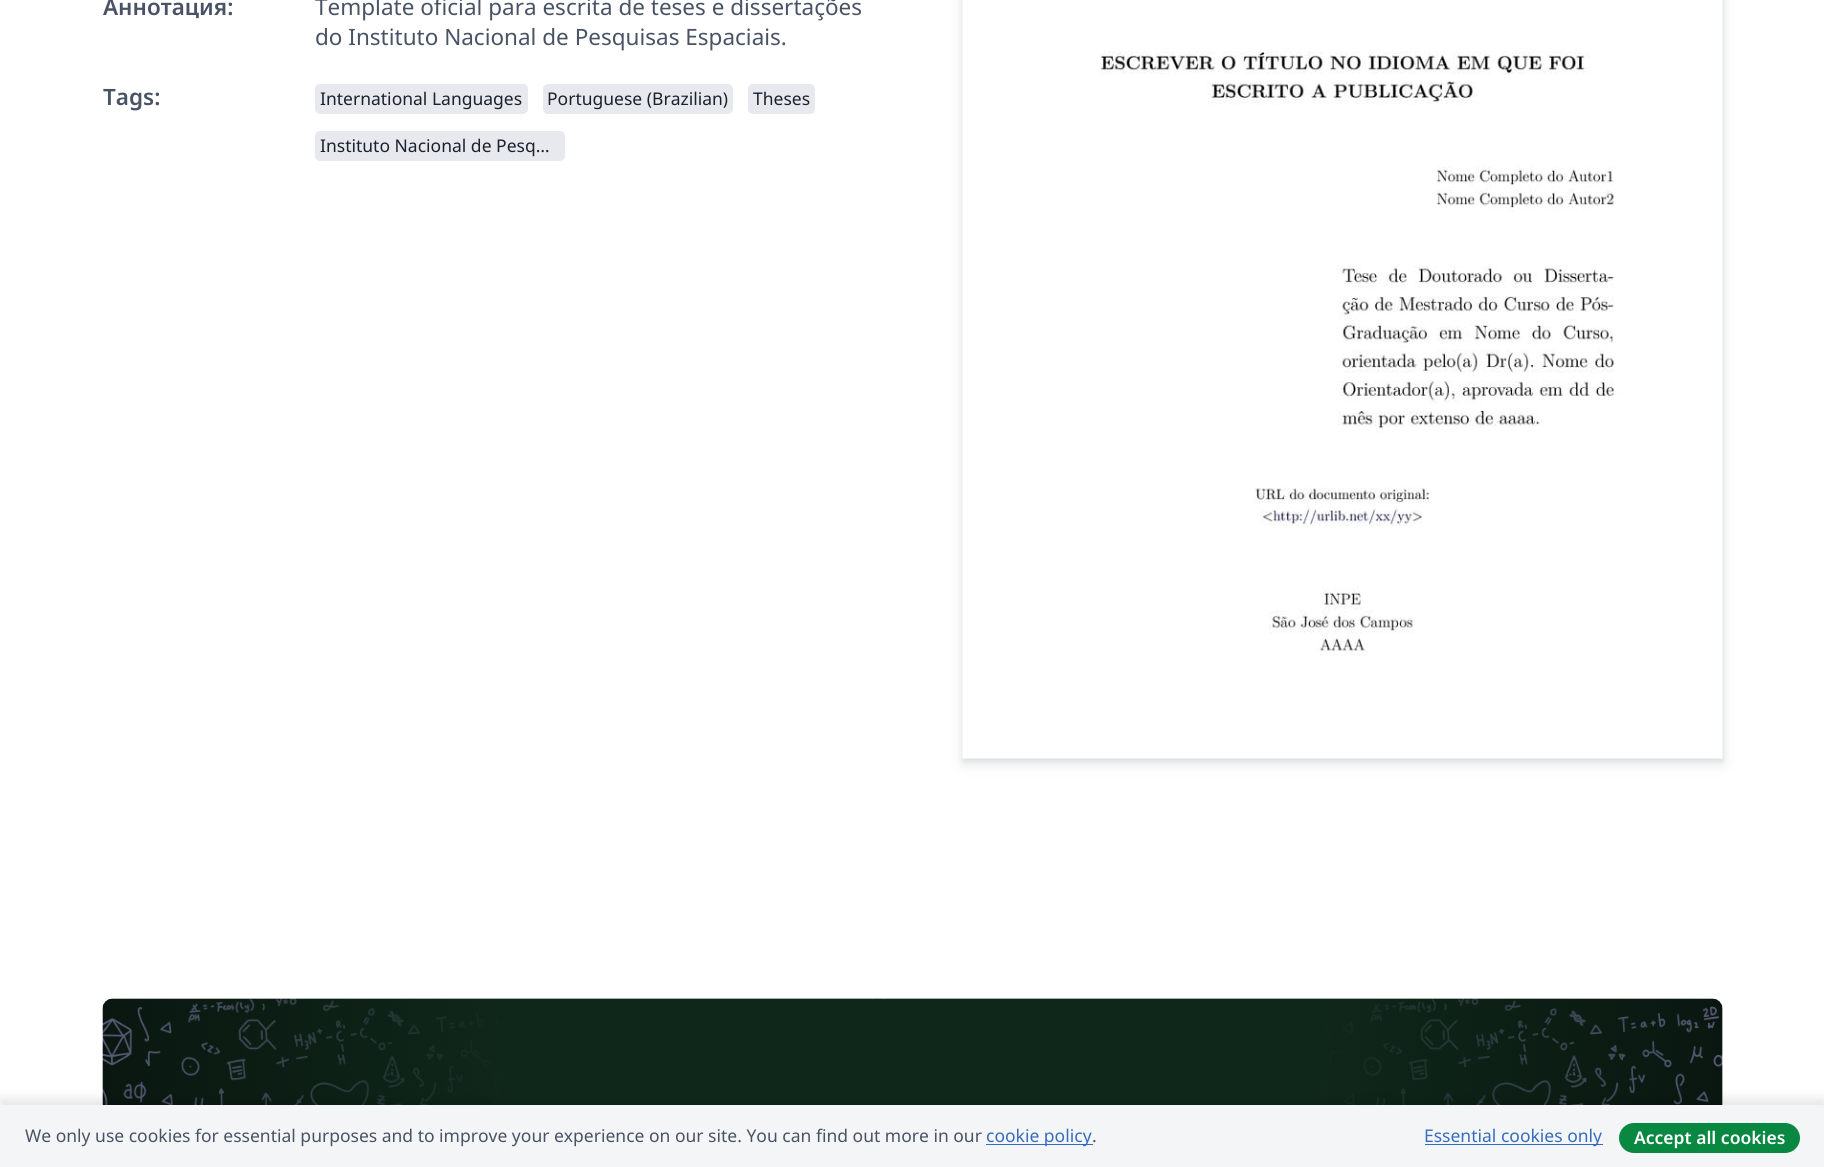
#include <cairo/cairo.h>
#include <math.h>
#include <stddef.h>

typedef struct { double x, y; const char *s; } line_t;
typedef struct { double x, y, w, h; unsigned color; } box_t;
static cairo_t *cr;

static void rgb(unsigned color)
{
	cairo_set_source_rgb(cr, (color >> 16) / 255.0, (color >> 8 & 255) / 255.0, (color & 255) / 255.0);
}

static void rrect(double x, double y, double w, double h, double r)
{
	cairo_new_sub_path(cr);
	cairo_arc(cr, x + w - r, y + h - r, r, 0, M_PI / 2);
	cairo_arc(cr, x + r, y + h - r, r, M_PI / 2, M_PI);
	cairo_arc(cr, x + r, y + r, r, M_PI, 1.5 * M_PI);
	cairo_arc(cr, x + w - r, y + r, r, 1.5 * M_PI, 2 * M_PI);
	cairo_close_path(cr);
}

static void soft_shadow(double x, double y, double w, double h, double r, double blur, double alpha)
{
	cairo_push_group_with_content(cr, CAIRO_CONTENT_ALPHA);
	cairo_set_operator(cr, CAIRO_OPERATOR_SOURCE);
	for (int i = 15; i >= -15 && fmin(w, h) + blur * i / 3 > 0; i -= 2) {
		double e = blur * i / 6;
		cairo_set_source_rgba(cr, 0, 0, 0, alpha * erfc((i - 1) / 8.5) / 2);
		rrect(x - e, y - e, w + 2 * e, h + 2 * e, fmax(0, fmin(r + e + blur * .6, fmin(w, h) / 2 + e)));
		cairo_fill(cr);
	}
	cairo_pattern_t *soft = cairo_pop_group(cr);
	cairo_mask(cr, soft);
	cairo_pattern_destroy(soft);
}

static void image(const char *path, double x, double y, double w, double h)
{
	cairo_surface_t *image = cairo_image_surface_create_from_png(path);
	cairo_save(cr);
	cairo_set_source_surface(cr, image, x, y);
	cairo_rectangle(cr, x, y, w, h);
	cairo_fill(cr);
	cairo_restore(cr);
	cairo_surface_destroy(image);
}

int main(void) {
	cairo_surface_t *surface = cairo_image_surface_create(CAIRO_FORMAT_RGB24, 1824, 1167);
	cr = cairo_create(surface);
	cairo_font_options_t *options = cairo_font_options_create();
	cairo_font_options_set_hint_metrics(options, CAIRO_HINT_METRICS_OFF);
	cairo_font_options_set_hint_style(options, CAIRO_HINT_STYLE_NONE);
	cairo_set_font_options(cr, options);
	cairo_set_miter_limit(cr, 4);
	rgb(0xffffff);
	cairo_paint(cr);
	rgb(0xe7e9ee);
	rrect(315, 84, 213, 30, 5);
	cairo_fill(cr);
	rrect(543, 84, 190, 30, 5);
	cairo_fill(cr);
	rrect(748, 84, 67, 30, 5);
	cairo_fill(cr);
	rrect(315, 131, 250, 30, 5);
	cairo_fill(cr);
	rgb(0x1e2530);
	soft_shadow(963, -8, 760, 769, 0, 2.5, 0.08);
	soft_shadow(963, -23, 760, 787, 0, 7.5, 0.12);
	image("img/1.png", 962, 0, 761, 759);
	rgb(0xf4f5f6);
	rrect(103, 999, 1620, 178, 10);
	cairo_fill(cr);
	image("img/2.png", 102, 998, 1621, 107);
	rgb(0x000000);
	soft_shadow(0, 1099, 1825, 62, 0, 5, 0.1);
	{
		static const box_t items[] = {
			{0, 1105, 1824, 62, 0xf4f5f6},
			{986, 1144, 107, 1, 0x366cbf},
			{1425, 1144, 178, 1, 0x366cbf},
		};
		for (size_t i = 0; i < sizeof items / sizeof *items; i++) {
			rgb(items[i].color);
			cairo_rectangle(cr, items[i].x, items[i].y, items[i].w, items[i].h);
			cairo_fill(cr);
		}
	}
	rgb(0x098842);
	rrect(1619, 1123, 181, 30, 15);
	cairo_fill(cr);
	cairo_select_font_face(cr, "Noto Sans SemiBold", CAIRO_FONT_SLANT_NORMAL, CAIRO_FONT_WEIGHT_NORMAL);
	cairo_set_font_size(cr, 22.5);
	rgb(0x495365);
	cairo_move_to(cr, 103, 15);
	cairo_show_text(cr, "Аннотация:");
	cairo_select_font_face(cr, "Noto Sans", CAIRO_FONT_SLANT_NORMAL, CAIRO_FONT_WEIGHT_NORMAL);
	cairo_move_to(cr, 315, 15);
	cairo_show_text(cr, "Template oficial para escrita de teses e dissertações");
	cairo_move_to(cr, 315, 45);
	cairo_show_text(cr, "do Instituto Nacional de Pesquisas Espaciais.");
	cairo_select_font_face(cr, "Noto Sans SemiBold", CAIRO_FONT_SLANT_NORMAL, CAIRO_FONT_WEIGHT_NORMAL);
	cairo_move_to(cr, 103, 105);
	cairo_show_text(cr, "Tags:");
	cairo_select_font_face(cr, "Noto Sans", CAIRO_FONT_SLANT_NORMAL, CAIRO_FONT_WEIGHT_NORMAL);
	cairo_set_font_size(cr, 17.5);
	rgb(0x1b222c);
	{
		static const line_t items[] = {
			{320, 105, "International Languages"},
			{547, 105, "Portuguese (Brazilian)"},
			{753, 105, "Theses"},
			{320, 152, "Instituto Nacional de Pesq…"},
		};
		for (size_t i = 0; i < sizeof items / sizeof *items; i++) {
			cairo_move_to(cr, items[i].x, items[i].y);
			cairo_show_text(cr, items[i].s);
		}
	}
	rgb(0x495365);
	cairo_move_to(cr, 25, 1142);
	cairo_show_text(cr, "We only use cookies for essential purposes and to improve your experience on our site. You can find out more in our");
	rgb(0x366cbf);
	cairo_move_to(cr, 986, 1142);
	cairo_show_text(cr, "cookie policy");
	rgb(0x495365);
	cairo_move_to(cr, 1092, 1142);
	cairo_show_text(cr, ".");
	rgb(0x366cbf);
	cairo_move_to(cr, 1424, 1142);
	cairo_show_text(cr, "Essential cookies only");
	cairo_select_font_face(cr, "Noto Sans SemiBold", CAIRO_FONT_SLANT_NORMAL, CAIRO_FONT_WEIGHT_NORMAL);
	rgb(0xffffff);
	cairo_move_to(cr, 1634, 1144);
	cairo_show_text(cr, "Accept all cookies");
	cairo_surface_write_to_png(surface, "page.png");
	cairo_font_options_destroy(options);
	cairo_destroy(cr);
	cairo_surface_destroy(surface);
	return 0;
}
